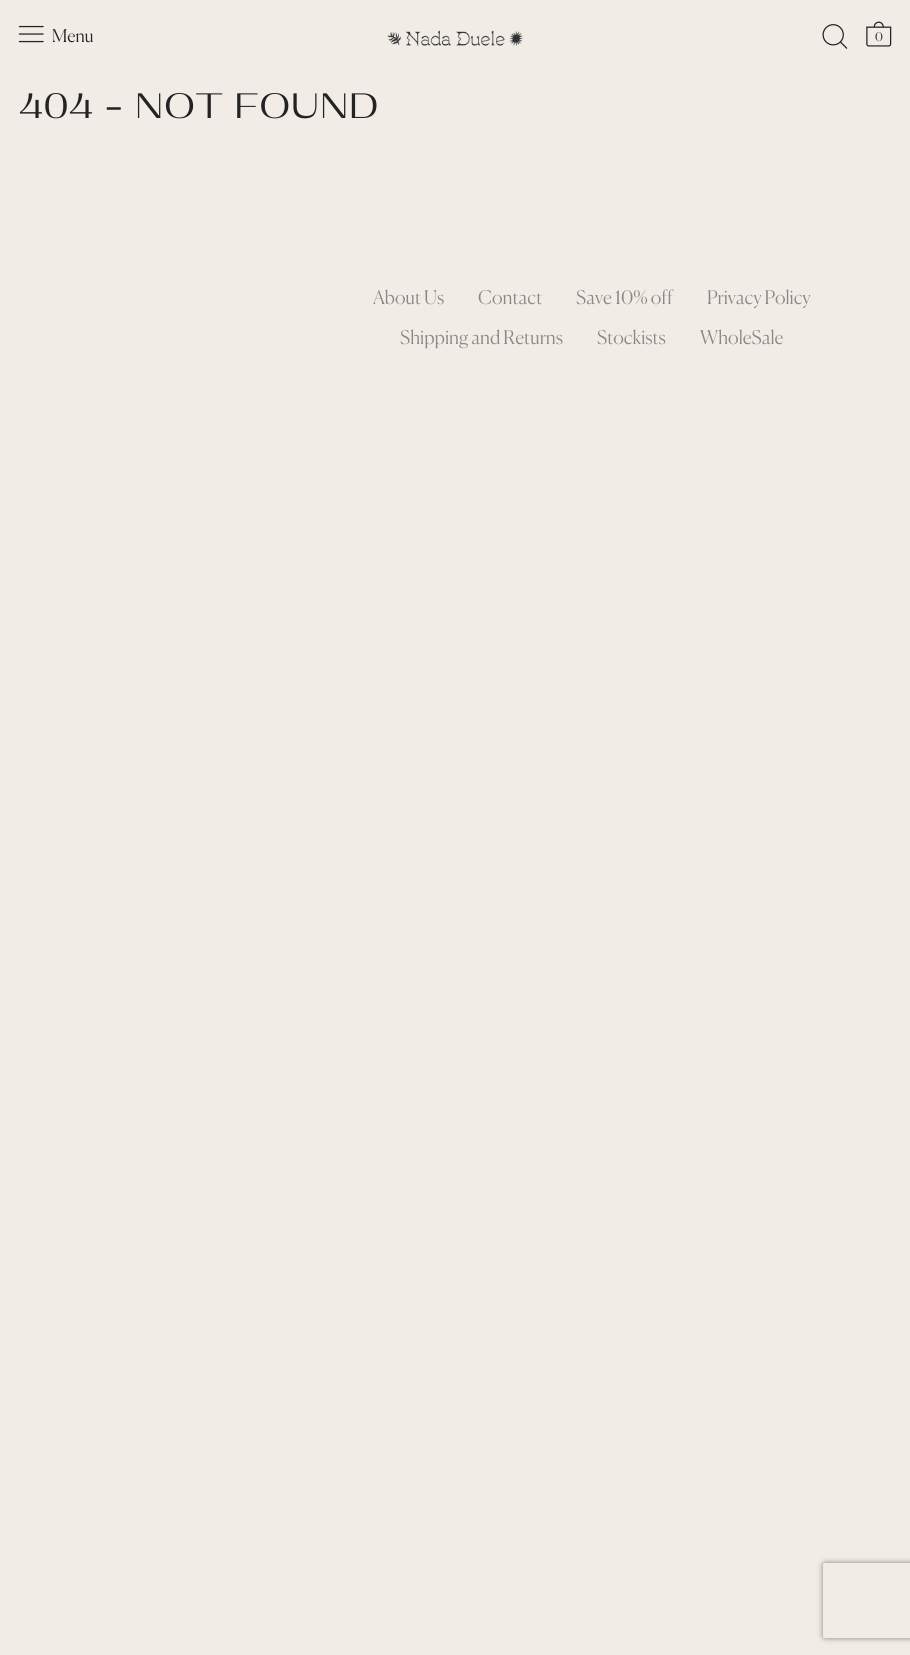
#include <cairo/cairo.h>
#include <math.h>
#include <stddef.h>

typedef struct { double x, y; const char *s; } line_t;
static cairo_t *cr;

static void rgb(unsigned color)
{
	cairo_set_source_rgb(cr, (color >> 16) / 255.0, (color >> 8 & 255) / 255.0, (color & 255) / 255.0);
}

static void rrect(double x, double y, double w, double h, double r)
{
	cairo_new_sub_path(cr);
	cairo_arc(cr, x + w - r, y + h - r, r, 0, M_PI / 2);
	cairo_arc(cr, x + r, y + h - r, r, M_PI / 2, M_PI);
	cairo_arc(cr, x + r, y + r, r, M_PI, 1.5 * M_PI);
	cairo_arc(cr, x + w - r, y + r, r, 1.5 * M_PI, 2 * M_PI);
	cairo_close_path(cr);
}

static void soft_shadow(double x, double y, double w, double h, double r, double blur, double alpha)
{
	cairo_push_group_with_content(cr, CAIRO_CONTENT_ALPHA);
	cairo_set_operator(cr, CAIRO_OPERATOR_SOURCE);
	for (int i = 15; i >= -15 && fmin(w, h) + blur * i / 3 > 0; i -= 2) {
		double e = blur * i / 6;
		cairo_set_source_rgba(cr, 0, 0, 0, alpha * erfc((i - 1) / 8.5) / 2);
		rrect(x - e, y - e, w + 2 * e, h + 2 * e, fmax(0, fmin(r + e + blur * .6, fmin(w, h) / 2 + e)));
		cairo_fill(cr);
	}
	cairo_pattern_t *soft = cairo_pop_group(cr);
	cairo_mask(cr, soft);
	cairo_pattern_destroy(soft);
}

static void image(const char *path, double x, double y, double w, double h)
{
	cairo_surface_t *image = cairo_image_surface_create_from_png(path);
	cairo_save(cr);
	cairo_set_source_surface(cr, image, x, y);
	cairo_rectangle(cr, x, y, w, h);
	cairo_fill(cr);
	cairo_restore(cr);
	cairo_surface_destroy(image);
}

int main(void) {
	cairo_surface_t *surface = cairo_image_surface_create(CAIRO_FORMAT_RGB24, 910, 1655);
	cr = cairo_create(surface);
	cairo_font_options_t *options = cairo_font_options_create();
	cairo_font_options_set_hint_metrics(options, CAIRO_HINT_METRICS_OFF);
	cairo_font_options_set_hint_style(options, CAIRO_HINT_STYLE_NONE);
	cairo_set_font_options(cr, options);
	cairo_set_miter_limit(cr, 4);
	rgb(0xf1ede6);
	cairo_paint(cr);
	image("img/1.png", 18, 25, 26, 18);
	image("img/2.png", 387, 30, 136, 17);
	image("img/3.png", 822, 24, 26, 25);
	image("img/4.png", 866, 21, 26, 26);
	cairo_save(cr);
	cairo_set_fill_rule(cr, CAIRO_FILL_RULE_EVEN_ODD);
	cairo_new_path(cr);
	cairo_move_to(cr, 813, 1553);
	cairo_line_to(cr, 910, 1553);
	cairo_line_to(cr, 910, 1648);
	cairo_line_to(cr, 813, 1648);
	cairo_close_path(cr);
	cairo_move_to(cr, 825.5, 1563);
	cairo_line_to(cr, 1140.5, 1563);
	cairo_curve_to(cr, 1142, 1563, 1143, 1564, 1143, 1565.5);
	cairo_line_to(cr, 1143, 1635.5);
	cairo_curve_to(cr, 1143, 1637, 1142, 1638, 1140.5, 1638);
	cairo_line_to(cr, 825.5, 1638);
	cairo_curve_to(cr, 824, 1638, 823, 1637, 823, 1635.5);
	cairo_line_to(cr, 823, 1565.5);
	cairo_curve_to(cr, 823, 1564, 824, 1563, 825.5, 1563);
	cairo_close_path(cr);
	cairo_clip(cr);
	rgb(0x808080);
	soft_shadow(823, 1563, 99, 75, 2.5, 3, 1);
	cairo_restore(cr);
	cairo_select_font_face(cr, "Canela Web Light", CAIRO_FONT_SLANT_NORMAL, CAIRO_FONT_WEIGHT_NORMAL);
	cairo_set_font_size(cr, 17.5);
	rgb(0x232323);
	cairo_move_to(cr, 52, 42);
	cairo_show_text(cr, "Menu");
	cairo_set_font_size(cr, 12);
	cairo_move_to(cr, 875, 41);
	cairo_show_text(cr, "0");
	cairo_select_font_face(cr, "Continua", CAIRO_FONT_SLANT_NORMAL, CAIRO_FONT_WEIGHT_NORMAL);
	cairo_set_font_size(cr, 36.25);
	cairo_move_to(cr, 19, 118);
	cairo_show_text(cr, "404 - NOT FOUND");
	cairo_select_font_face(cr, "Canela Web Light", CAIRO_FONT_SLANT_NORMAL, CAIRO_FONT_WEIGHT_NORMAL);
	cairo_set_font_size(cr, 18.75);
	rgb(0x8a8885);
	{
		static const line_t items[] = {
			{373, 304, "About Us"},
			{478, 304, "Contact"},
			{576, 304, "Save 10% off"},
			{707, 304, "Privacy Policy"},
			{400, 344, "Shipping and Returns"},
			{597, 344, "Stockists"},
			{700, 344, "WholeSale"},
		};
		for (size_t i = 0; i < sizeof items / sizeof *items; i++) {
			cairo_move_to(cr, items[i].x, items[i].y);
			cairo_show_text(cr, items[i].s);
		}
	}
	cairo_surface_write_to_png(surface, "page.png");
	cairo_font_options_destroy(options);
	cairo_destroy(cr);
	cairo_surface_destroy(surface);
	return 0;
}
